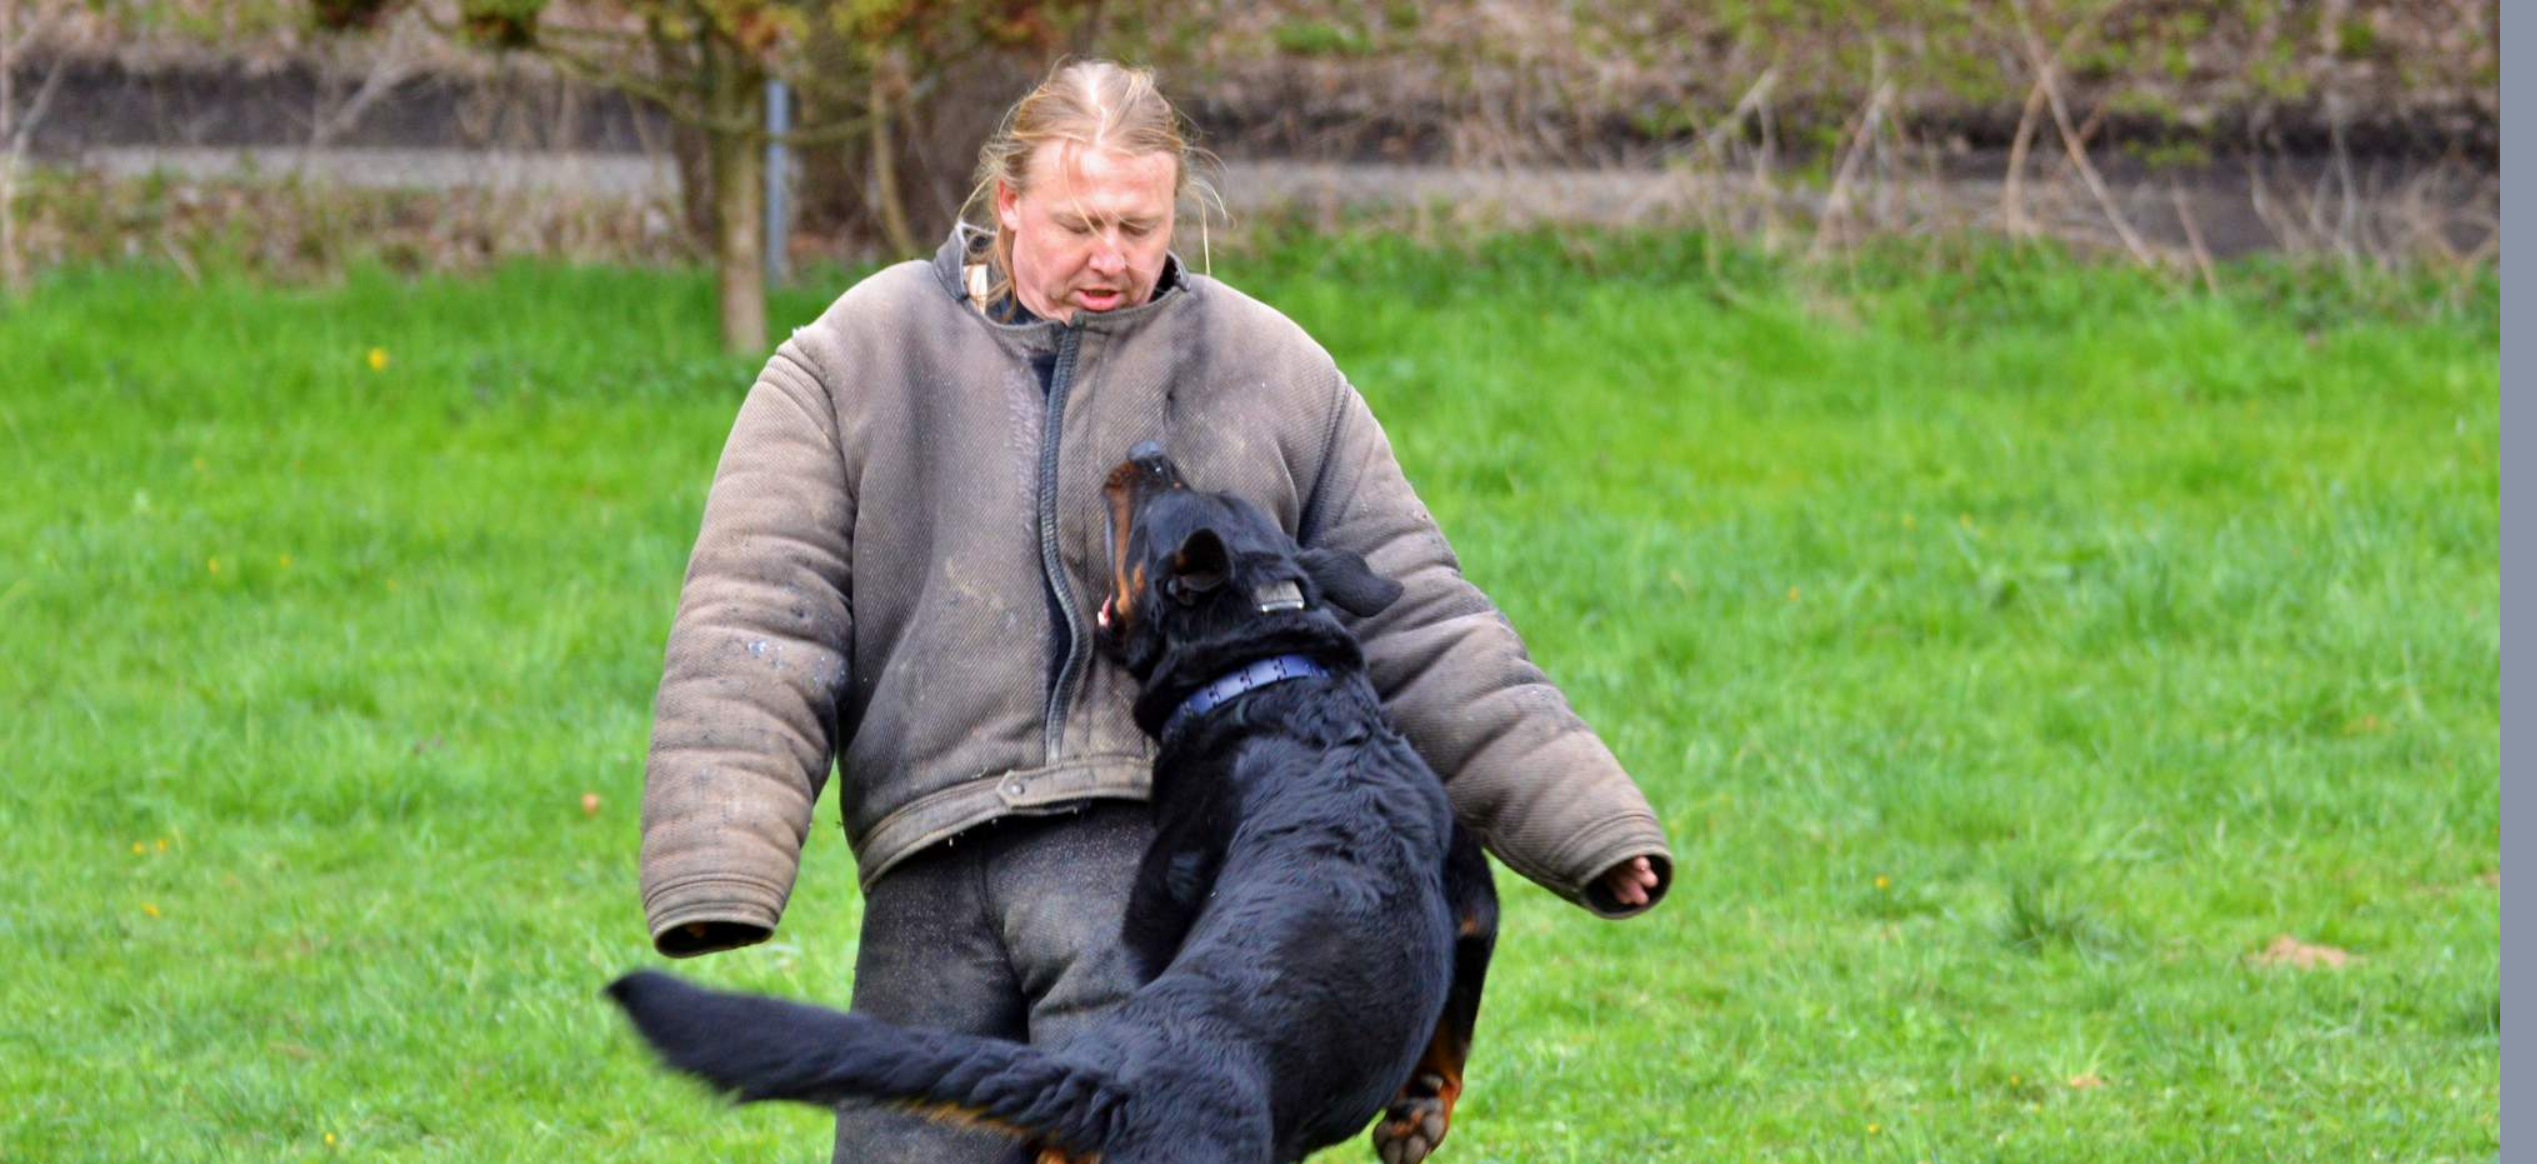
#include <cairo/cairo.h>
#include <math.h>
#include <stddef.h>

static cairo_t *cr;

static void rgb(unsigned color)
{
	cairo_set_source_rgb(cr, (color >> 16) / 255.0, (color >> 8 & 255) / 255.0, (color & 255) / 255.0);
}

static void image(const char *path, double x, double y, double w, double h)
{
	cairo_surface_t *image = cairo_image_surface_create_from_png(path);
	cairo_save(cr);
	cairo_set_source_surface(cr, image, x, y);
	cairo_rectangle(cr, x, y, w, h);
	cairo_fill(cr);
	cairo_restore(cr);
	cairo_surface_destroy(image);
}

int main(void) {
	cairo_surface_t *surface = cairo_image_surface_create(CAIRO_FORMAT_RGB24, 2537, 1164);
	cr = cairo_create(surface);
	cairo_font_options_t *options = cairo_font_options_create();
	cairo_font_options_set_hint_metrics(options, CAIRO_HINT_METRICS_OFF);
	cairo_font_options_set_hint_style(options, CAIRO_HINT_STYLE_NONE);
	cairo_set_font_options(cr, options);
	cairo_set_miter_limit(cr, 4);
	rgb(0x8b94a5);
	cairo_paint(cr);
	image("img/1.png", 0, 0, 2500, 1164);
	cairo_surface_write_to_png(surface, "page.png");
	cairo_font_options_destroy(options);
	cairo_destroy(cr);
	cairo_surface_destroy(surface);
	return 0;
}
